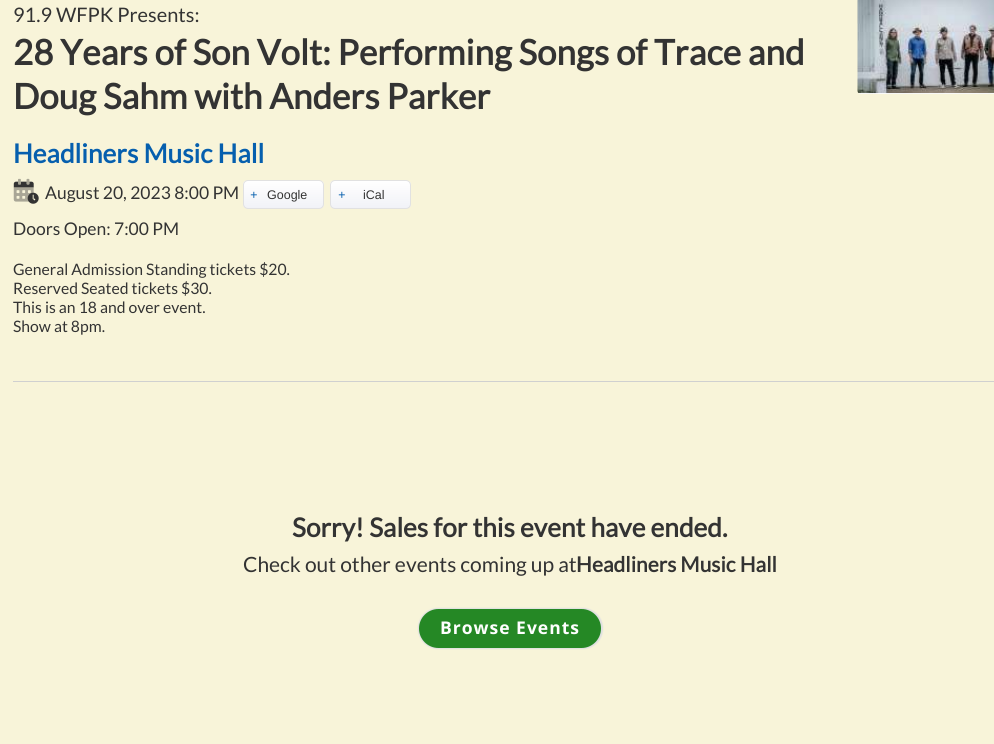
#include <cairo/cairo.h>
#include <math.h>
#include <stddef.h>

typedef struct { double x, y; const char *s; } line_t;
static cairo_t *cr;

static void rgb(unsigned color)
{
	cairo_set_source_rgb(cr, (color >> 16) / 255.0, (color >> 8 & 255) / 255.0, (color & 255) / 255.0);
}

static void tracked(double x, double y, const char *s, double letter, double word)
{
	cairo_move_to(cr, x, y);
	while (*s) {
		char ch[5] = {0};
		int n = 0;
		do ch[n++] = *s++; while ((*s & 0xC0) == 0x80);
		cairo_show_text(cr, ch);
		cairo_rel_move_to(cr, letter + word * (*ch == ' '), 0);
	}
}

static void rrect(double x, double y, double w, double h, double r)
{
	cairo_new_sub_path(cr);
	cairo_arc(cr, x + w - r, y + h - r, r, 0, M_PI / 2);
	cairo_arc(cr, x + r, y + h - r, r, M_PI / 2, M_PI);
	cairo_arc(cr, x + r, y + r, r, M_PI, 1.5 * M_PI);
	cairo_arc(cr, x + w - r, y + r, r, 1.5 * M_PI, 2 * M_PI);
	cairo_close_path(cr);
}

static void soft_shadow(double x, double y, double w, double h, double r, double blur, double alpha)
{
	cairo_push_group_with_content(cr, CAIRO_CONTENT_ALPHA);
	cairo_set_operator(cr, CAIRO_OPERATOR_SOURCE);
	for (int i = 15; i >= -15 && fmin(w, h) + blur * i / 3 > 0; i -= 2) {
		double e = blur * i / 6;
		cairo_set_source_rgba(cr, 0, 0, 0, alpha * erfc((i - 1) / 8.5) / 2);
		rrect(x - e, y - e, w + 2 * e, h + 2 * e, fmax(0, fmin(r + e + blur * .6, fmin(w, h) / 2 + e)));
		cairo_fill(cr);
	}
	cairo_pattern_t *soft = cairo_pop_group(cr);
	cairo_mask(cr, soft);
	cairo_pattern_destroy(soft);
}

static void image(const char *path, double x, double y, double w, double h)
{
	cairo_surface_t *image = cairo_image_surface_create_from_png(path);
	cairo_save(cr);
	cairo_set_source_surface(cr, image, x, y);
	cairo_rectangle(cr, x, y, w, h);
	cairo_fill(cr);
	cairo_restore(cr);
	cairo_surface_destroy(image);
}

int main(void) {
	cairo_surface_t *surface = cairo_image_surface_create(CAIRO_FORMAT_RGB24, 994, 744);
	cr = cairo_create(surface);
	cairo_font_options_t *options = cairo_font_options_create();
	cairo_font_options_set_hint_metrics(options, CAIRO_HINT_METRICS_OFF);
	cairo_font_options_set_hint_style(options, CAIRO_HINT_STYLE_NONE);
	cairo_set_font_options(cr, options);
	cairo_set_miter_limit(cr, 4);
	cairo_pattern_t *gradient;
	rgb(0xf8f4d9);
	cairo_paint(cr);
	rgb(0xffffff);
	rrect(858, -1, 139, 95, 2.5);
	cairo_fill(cr);
	image("img/1.png", 857, 0, 137, 94);
	image("img/3.png", 13, 181, 21, 7);
	image("img/2.png", 13, 178, 21, 24);
	image("img/4.png", 27, 192, 12, 12);
	cairo_save(cr);
	rrect(243, 180, 81, 29, 5);
	cairo_clip(cr);
	gradient = cairo_pattern_create_linear(283, 181, 283, 208);
	cairo_pattern_add_color_stop_rgba(gradient, 0, 1, 1, 1, 1);
	cairo_pattern_add_color_stop_rgba(gradient, 1, 0.945, 0.949, 0.969, 1);
	cairo_set_source(cr, gradient);
	cairo_pattern_destroy(gradient);
	cairo_rectangle(cr, 243, 181, 81, 27);
	cairo_fill(cr);
	cairo_restore(cr);
	rrect(243.5, 180.5, 80, 28, 4.5);
	rgb(0xe1e1e1);
	cairo_set_line_width(cr, 1);
	cairo_stroke(cr);
	cairo_save(cr);
	rrect(330, 180, 81, 29, 5);
	cairo_clip(cr);
	gradient = cairo_pattern_create_linear(371, 181, 371, 208);
	cairo_pattern_add_color_stop_rgba(gradient, 0, 1, 1, 1, 1);
	cairo_pattern_add_color_stop_rgba(gradient, 1, 0.945, 0.949, 0.969, 1);
	cairo_set_source(cr, gradient);
	cairo_pattern_destroy(gradient);
	cairo_rectangle(cr, 330, 181, 81, 27);
	cairo_fill(cr);
	cairo_restore(cr);
	rrect(330.5, 180.5, 80, 28, 4.5);
	cairo_stroke(cr);
	rgb(0xd0d0d0);
	cairo_rectangle(cr, 13, 381, 981, 1);
	cairo_fill(cr);
	rgb(0xe0e0e0);
	soft_shadow(418, 608, 185, 41, 20.5, 0.5, 1);
	rgb(0x258825);
	rrect(419, 609, 182, 39, 19.5);
	cairo_fill(cr);
	cairo_select_font_face(cr, "Lato", CAIRO_FONT_SLANT_NORMAL, CAIRO_FONT_WEIGHT_NORMAL);
	cairo_set_font_size(cr, 20);
	rgb(0x333333);
	cairo_move_to(cr, 13, 22);
	cairo_show_text(cr, "91.9 WFPK Presents:");
	cairo_select_font_face(cr, "Lato", CAIRO_FONT_SLANT_NORMAL, CAIRO_FONT_WEIGHT_BOLD);
	cairo_set_font_size(cr, 35);
	cairo_move_to(cr, 13, 65);
	cairo_show_text(cr, "28 Years of Son Volt: Performing Songs of Trace and");
	cairo_move_to(cr, 13, 109);
	cairo_show_text(cr, "Doug Sahm with Anders Parker");
	cairo_set_font_size(cr, 26.25);
	rgb(0x065fae);
	cairo_move_to(cr, 13, 163);
	cairo_show_text(cr, "Headliners Music Hall");
	cairo_select_font_face(cr, "Lato", CAIRO_FONT_SLANT_NORMAL, CAIRO_FONT_WEIGHT_NORMAL);
	cairo_set_font_size(cr, 17.5);
	rgb(0x333333);
	cairo_move_to(cr, 45, 199);
	cairo_show_text(cr, "August 20, 2023 8:00 PM");
	cairo_select_font_face(cr, "Liberation Sans", CAIRO_FONT_SLANT_ITALIC, CAIRO_FONT_WEIGHT_NORMAL);
	cairo_set_font_size(cr, 12.5);
	rgb(0x065fae);
	cairo_move_to(cr, 250, 199);
	cairo_show_text(cr, "+");
	cairo_select_font_face(cr, "Liberation Sans", CAIRO_FONT_SLANT_NORMAL, CAIRO_FONT_WEIGHT_NORMAL);
	rgb(0x333333);
	cairo_move_to(cr, 267, 199);
	cairo_show_text(cr, "Google");
	cairo_select_font_face(cr, "Liberation Sans", CAIRO_FONT_SLANT_ITALIC, CAIRO_FONT_WEIGHT_NORMAL);
	rgb(0x065fae);
	cairo_move_to(cr, 338, 199);
	cairo_show_text(cr, "+");
	cairo_select_font_face(cr, "Liberation Sans", CAIRO_FONT_SLANT_NORMAL, CAIRO_FONT_WEIGHT_NORMAL);
	rgb(0x333333);
	cairo_move_to(cr, 363, 199);
	cairo_show_text(cr, "iCal");
	cairo_select_font_face(cr, "Lato", CAIRO_FONT_SLANT_NORMAL, CAIRO_FONT_WEIGHT_NORMAL);
	cairo_set_font_size(cr, 17.5);
	cairo_move_to(cr, 13, 235);
	cairo_show_text(cr, "Doors Open: 7:00 PM");
	cairo_set_font_size(cr, 15.75);
	{
		static const line_t items[] = {
			{13, 275, "General Admission Standing tickets $20."},
			{13, 294, "Reserved Seated tickets $30."},
			{13, 313, "This is an 18 and over event."},
			{13, 332, "Show at 8pm."},
		};
		for (size_t i = 0; i < sizeof items / sizeof *items; i++) {
			cairo_move_to(cr, items[i].x, items[i].y);
			cairo_show_text(cr, items[i].s);
		}
	}
	cairo_select_font_face(cr, "Lato", CAIRO_FONT_SLANT_NORMAL, CAIRO_FONT_WEIGHT_BOLD);
	cairo_set_font_size(cr, 26.25);
	cairo_move_to(cr, 292, 537);
	cairo_show_text(cr, "Sorry! Sales for this event have ended.");
	cairo_select_font_face(cr, "Lato", CAIRO_FONT_SLANT_NORMAL, CAIRO_FONT_WEIGHT_NORMAL);
	cairo_set_font_size(cr, 21);
	cairo_move_to(cr, 243, 572);
	cairo_show_text(cr, "Check out other events coming up at");
	cairo_select_font_face(cr, "Lato", CAIRO_FONT_SLANT_NORMAL, CAIRO_FONT_WEIGHT_BOLD);
	cairo_move_to(cr, 576, 572);
	cairo_show_text(cr, "Headliners Music Hall");
	cairo_select_font_face(cr, "Open Sans", CAIRO_FONT_SLANT_NORMAL, CAIRO_FONT_WEIGHT_BOLD);
	cairo_set_font_size(cr, 17.5);
	rgb(0xffffff);
	tracked(440, 634, "Browse Events", 1, 0);
	cairo_surface_write_to_png(surface, "page.png");
	cairo_font_options_destroy(options);
	cairo_destroy(cr);
	cairo_surface_destroy(surface);
	return 0;
}
